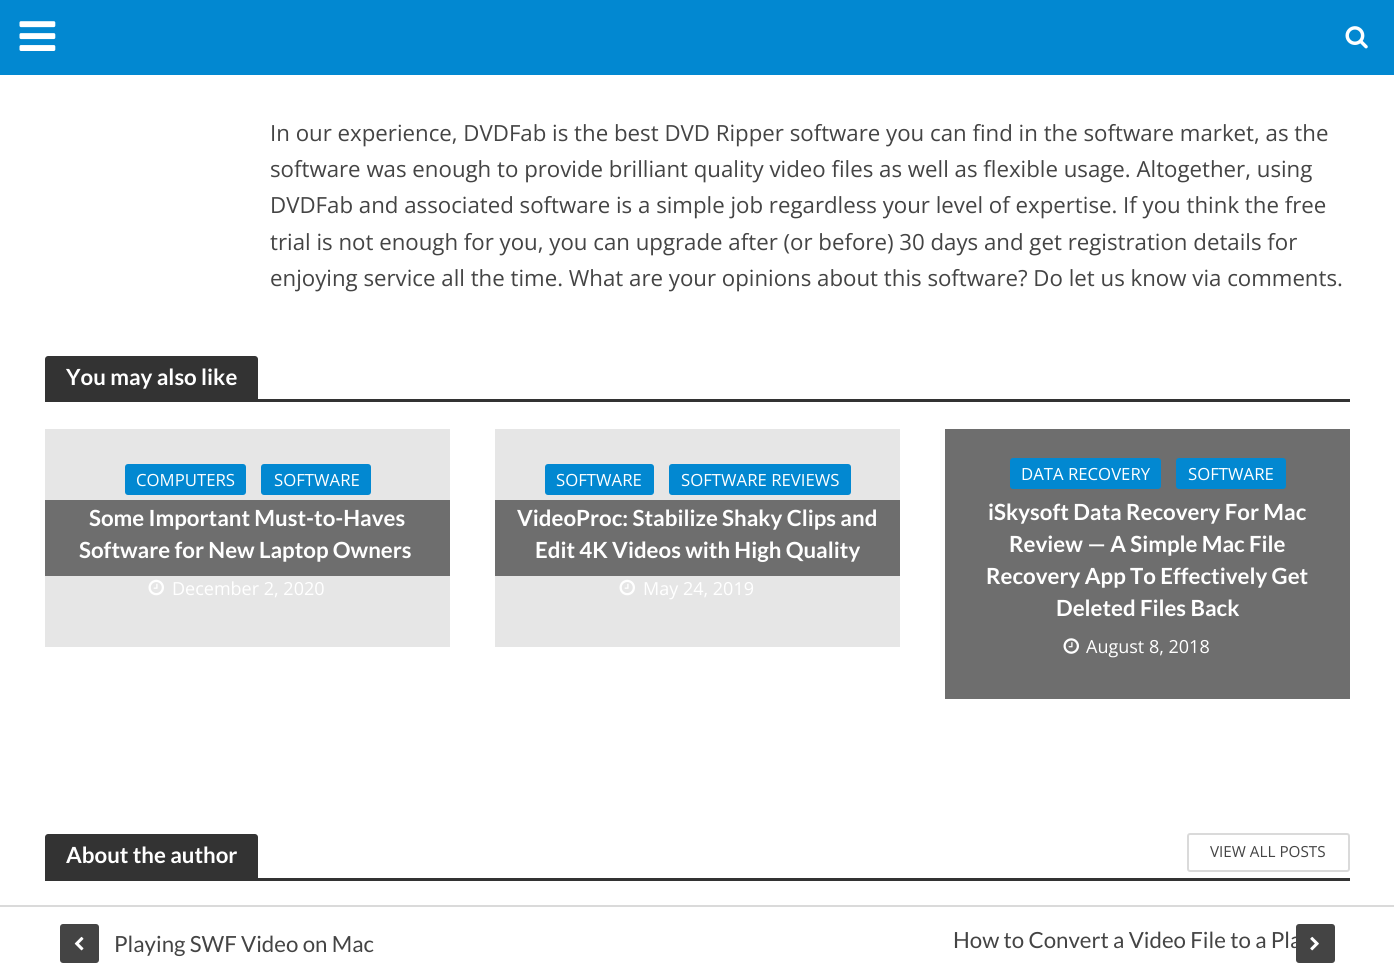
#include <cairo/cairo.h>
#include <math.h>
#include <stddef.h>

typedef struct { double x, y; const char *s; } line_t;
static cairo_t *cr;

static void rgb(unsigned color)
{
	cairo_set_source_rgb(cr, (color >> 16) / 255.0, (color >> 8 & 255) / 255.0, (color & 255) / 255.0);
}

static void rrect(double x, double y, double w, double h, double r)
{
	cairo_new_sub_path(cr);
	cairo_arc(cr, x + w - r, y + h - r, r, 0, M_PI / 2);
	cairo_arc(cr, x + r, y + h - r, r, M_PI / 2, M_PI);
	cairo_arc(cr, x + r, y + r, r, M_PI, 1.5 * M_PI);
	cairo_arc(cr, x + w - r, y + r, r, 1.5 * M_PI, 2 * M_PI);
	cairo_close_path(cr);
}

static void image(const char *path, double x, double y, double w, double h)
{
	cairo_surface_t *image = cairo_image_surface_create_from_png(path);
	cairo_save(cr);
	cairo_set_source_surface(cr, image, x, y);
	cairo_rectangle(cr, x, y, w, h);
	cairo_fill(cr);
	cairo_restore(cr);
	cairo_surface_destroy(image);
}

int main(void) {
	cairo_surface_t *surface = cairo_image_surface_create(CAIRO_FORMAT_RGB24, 1394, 979);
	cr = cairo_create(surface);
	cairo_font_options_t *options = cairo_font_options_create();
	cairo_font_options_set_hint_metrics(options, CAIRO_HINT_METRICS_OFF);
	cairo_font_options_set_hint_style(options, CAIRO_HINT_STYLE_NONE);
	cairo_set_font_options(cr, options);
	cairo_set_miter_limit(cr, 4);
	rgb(0xffffff);
	cairo_paint(cr);
	rgb(0x0288d1);
	cairo_rectangle(cr, 0, 0, 1394, 75);
	cairo_fill(cr);
	image("img/1.png", 19, 21, 37, 30);
	image("img/2.png", 1345, 26, 23, 23);
	rgb(0x333333);
	cairo_new_path(cr);
	cairo_move_to(cr, 48, 356);
	cairo_line_to(cr, 255, 356);
	cairo_curve_to(cr, 256.5, 356, 258, 357.5, 258, 359);
	cairo_line_to(cr, 258, 399);
	cairo_line_to(cr, 45, 399);
	cairo_line_to(cr, 45, 359);
	cairo_curve_to(cr, 45, 357.5, 46.5, 356, 48, 356);
	cairo_close_path(cr);
	cairo_fill(cr);
	cairo_rectangle(cr, 45, 399, 1305, 3);
	cairo_fill(cr);
	rgb(0xe6e6e6);
	cairo_rectangle(cr, 45, 429, 405, 218);
	cairo_fill(cr);
	rgb(0x0288d1);
	rrect(125, 464, 121, 31, 3);
	cairo_fill(cr);
	rrect(261, 464, 110, 31, 3);
	cairo_fill(cr);
	image("img/3.png", 148, 579, 16, 17);
	rgb(0x6e6e6e);
	cairo_rectangle(cr, 45, 500, 405, 76);
	cairo_fill(cr);
	rgb(0xe6e6e6);
	cairo_rectangle(cr, 495, 429, 405, 218);
	cairo_fill(cr);
	rgb(0x0288d1);
	rrect(545, 464, 109, 31, 3);
	cairo_fill(cr);
	rrect(669, 464, 182, 31, 3);
	cairo_fill(cr);
	image("img/3.png", 619, 579, 16, 17);
	rgb(0x6e6e6e);
	cairo_rectangle(cr, 495, 500, 405, 76);
	cairo_fill(cr);
	cairo_rectangle(cr, 945, 429, 405, 270);
	cairo_fill(cr);
	rgb(0x0288d1);
	rrect(1010, 458, 151, 31, 3);
	cairo_fill(cr);
	rrect(1176, 458, 110, 31, 3);
	cairo_fill(cr);
	image("img/4.png", 1063, 638, 16, 16);
	rgb(0x333333);
	cairo_new_path(cr);
	cairo_move_to(cr, 48, 834);
	cairo_line_to(cr, 255, 834);
	cairo_curve_to(cr, 256.5, 834, 258, 835.5, 258, 837);
	cairo_line_to(cr, 258, 878);
	cairo_line_to(cr, 45, 878);
	cairo_line_to(cr, 45, 837);
	cairo_curve_to(cr, 45, 835.5, 46.5, 834, 48, 834);
	cairo_close_path(cr);
	cairo_fill(cr);
	rrect(1188, 834, 161, 37, 2);
	rgb(0xdadada);
	cairo_stroke(cr);
	rgb(0x333333);
	cairo_rectangle(cr, 45, 878, 1305, 3);
	cairo_fill(cr);
	rgb(0xdadada);
	cairo_rectangle(cr, 0, 905, 1394, 2);
	cairo_fill(cr);
	rgb(0x444444);
	rrect(60, 924, 39, 39, 3);
	cairo_fill(cr);
	image("img/5.png", 74, 936, 10, 15);
	rrect(1296, 924, 39, 39, 3);
	cairo_fill(cr);
	image("img/6.png", 1310, 936, 9, 15);
	cairo_select_font_face(cr, "Open Sans", CAIRO_FONT_SLANT_NORMAL, CAIRO_FONT_WEIGHT_NORMAL);
	cairo_set_font_size(cr, 22.25);
	{
		static const line_t items[] = {
			{270, 141, "In our experience, DVDFab is the best DVD Ripper software you can find in the software market, as the"},
			{270, 177, "software was enough to provide brilliant quality video files as well as flexible usage. Altogether, using"},
			{270, 213, "DVDFab and associated software is a simple job regardless your level of expertise. If you think the free"},
			{270, 250, "trial is not enough for you, you can upgrade after (or before) 30 days and get registration details for"},
			{270, 286, "enjoying service all the time. What are your opinions about this software? Do let us know via comments."},
		};
		for (size_t i = 0; i < sizeof items / sizeof *items; i++) {
			cairo_move_to(cr, items[i].x, items[i].y);
			cairo_show_text(cr, items[i].s);
		}
	}
	cairo_select_font_face(cr, "Lato", CAIRO_FONT_SLANT_NORMAL, CAIRO_FONT_WEIGHT_BOLD);
	rgb(0xffffff);
	cairo_move_to(cr, 66, 385);
	cairo_show_text(cr, "You may also like");
	cairo_select_font_face(cr, "Open Sans", CAIRO_FONT_SLANT_NORMAL, CAIRO_FONT_WEIGHT_NORMAL);
	cairo_set_font_size(cr, 16.75);
	cairo_move_to(cr, 136, 486);
	cairo_show_text(cr, "COMPUTERS");
	cairo_move_to(cr, 274, 486);
	cairo_show_text(cr, "SOFTWARE");
	cairo_select_font_face(cr, "Lato", CAIRO_FONT_SLANT_NORMAL, CAIRO_FONT_WEIGHT_BOLD);
	cairo_set_font_size(cr, 22.25);
	cairo_move_to(cr, 89, 526);
	cairo_show_text(cr, "Some Important Must-to-Haves");
	cairo_move_to(cr, 79, 558);
	cairo_show_text(cr, "Software for New Laptop Owners");
	cairo_select_font_face(cr, "Open Sans", CAIRO_FONT_SLANT_NORMAL, CAIRO_FONT_WEIGHT_NORMAL);
	cairo_set_font_size(cr, 18);
	cairo_move_to(cr, 172, 595);
	cairo_show_text(cr, "December 2, 2020");
	cairo_set_font_size(cr, 16.75);
	cairo_move_to(cr, 556, 486);
	cairo_show_text(cr, "SOFTWARE");
	cairo_move_to(cr, 681, 486);
	cairo_show_text(cr, "SOFTWARE REVIEWS");
	cairo_select_font_face(cr, "Lato", CAIRO_FONT_SLANT_NORMAL, CAIRO_FONT_WEIGHT_BOLD);
	cairo_set_font_size(cr, 22.25);
	cairo_move_to(cr, 517, 526);
	cairo_show_text(cr, "VideoProc: Stabilize Shaky Clips and");
	cairo_move_to(cr, 535, 558);
	cairo_show_text(cr, "Edit 4K Videos with High Quality");
	cairo_select_font_face(cr, "Open Sans", CAIRO_FONT_SLANT_NORMAL, CAIRO_FONT_WEIGHT_NORMAL);
	cairo_set_font_size(cr, 18);
	cairo_move_to(cr, 643, 595);
	cairo_show_text(cr, "May 24, 2019");
	cairo_set_font_size(cr, 16.75);
	cairo_move_to(cr, 1021, 480);
	cairo_show_text(cr, "DATA RECOVERY");
	cairo_move_to(cr, 1188, 480);
	cairo_show_text(cr, "SOFTWARE");
	cairo_select_font_face(cr, "Lato", CAIRO_FONT_SLANT_NORMAL, CAIRO_FONT_WEIGHT_BOLD);
	cairo_set_font_size(cr, 22.25);
	{
		static const line_t items[] = {
			{988, 520, "iSkysoft Data Recovery For Mac"},
			{1009, 552, "Review — A Simple Mac File"},
			{986, 584, "Recovery App To Effectively Get"},
			{1056, 616, "Deleted Files Back"},
		};
		for (size_t i = 0; i < sizeof items / sizeof *items; i++) {
			cairo_move_to(cr, items[i].x, items[i].y);
			cairo_show_text(cr, items[i].s);
		}
	}
	cairo_select_font_face(cr, "Open Sans", CAIRO_FONT_SLANT_NORMAL, CAIRO_FONT_WEIGHT_NORMAL);
	cairo_set_font_size(cr, 18);
	cairo_move_to(cr, 1086, 653);
	cairo_show_text(cr, "August 8, 2018");
	cairo_select_font_face(cr, "Lato", CAIRO_FONT_SLANT_NORMAL, CAIRO_FONT_WEIGHT_BOLD);
	cairo_set_font_size(cr, 22.25);
	cairo_move_to(cr, 66, 863);
	cairo_show_text(cr, "About the author");
	cairo_select_font_face(cr, "Open Sans", CAIRO_FONT_SLANT_NORMAL, CAIRO_FONT_WEIGHT_NORMAL);
	cairo_set_font_size(cr, 15.25);
	rgb(0x444444);
	cairo_move_to(cr, 1210, 857);
	cairo_show_text(cr, "VIEW ALL POSTS");
	cairo_select_font_face(cr, "Lato", CAIRO_FONT_SLANT_NORMAL, CAIRO_FONT_WEIGHT_NORMAL);
	cairo_set_font_size(cr, 22.25);
	cairo_move_to(cr, 114, 952);
	cairo_show_text(cr, "Playing SWF Video on Mac");
	cairo_move_to(cr, 953, 948);
	cairo_show_text(cr, "How to Convert a Video File to a Pla");
	cairo_surface_write_to_png(surface, "page.png");
	cairo_font_options_destroy(options);
	cairo_destroy(cr);
	cairo_surface_destroy(surface);
	return 0;
}
